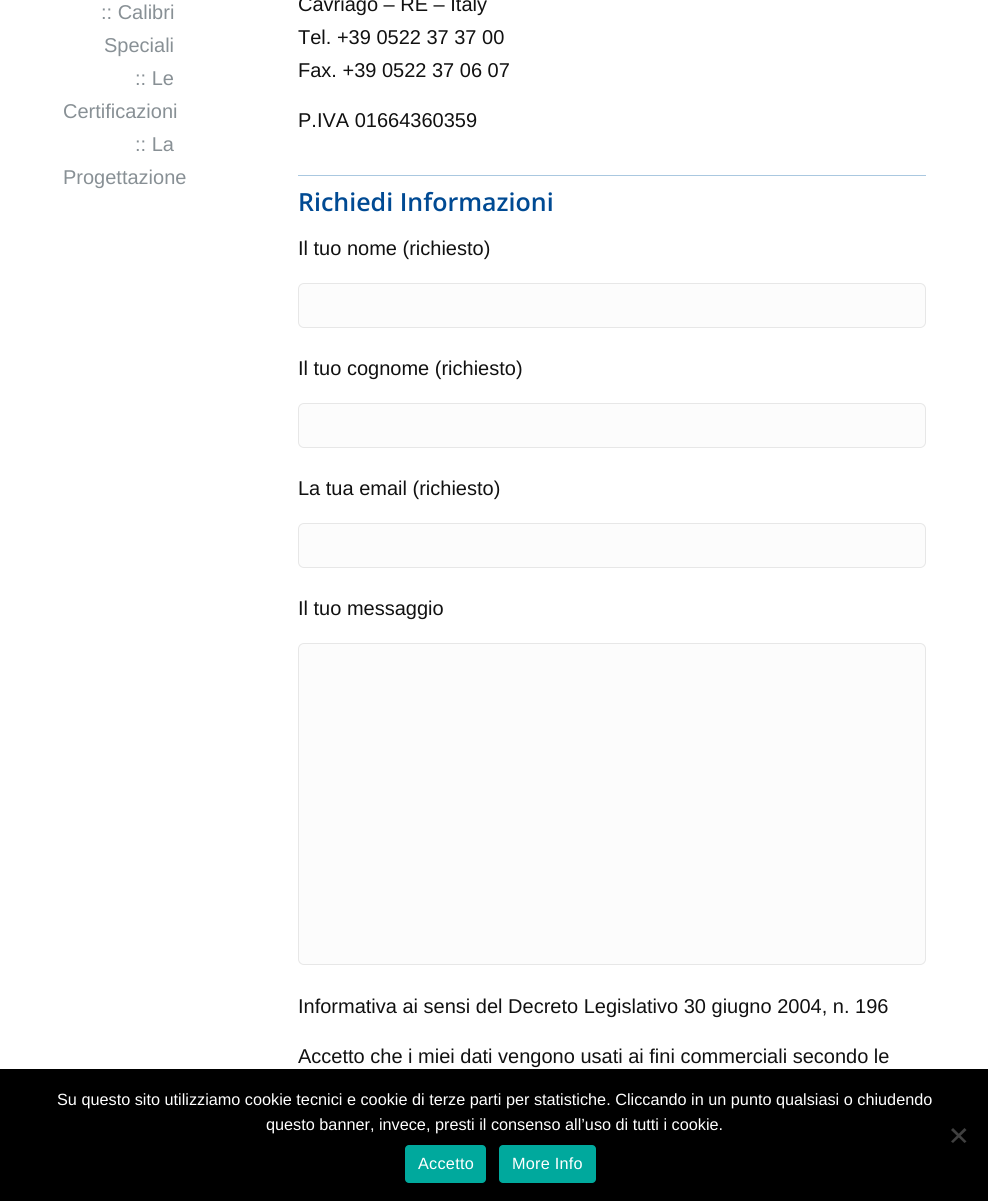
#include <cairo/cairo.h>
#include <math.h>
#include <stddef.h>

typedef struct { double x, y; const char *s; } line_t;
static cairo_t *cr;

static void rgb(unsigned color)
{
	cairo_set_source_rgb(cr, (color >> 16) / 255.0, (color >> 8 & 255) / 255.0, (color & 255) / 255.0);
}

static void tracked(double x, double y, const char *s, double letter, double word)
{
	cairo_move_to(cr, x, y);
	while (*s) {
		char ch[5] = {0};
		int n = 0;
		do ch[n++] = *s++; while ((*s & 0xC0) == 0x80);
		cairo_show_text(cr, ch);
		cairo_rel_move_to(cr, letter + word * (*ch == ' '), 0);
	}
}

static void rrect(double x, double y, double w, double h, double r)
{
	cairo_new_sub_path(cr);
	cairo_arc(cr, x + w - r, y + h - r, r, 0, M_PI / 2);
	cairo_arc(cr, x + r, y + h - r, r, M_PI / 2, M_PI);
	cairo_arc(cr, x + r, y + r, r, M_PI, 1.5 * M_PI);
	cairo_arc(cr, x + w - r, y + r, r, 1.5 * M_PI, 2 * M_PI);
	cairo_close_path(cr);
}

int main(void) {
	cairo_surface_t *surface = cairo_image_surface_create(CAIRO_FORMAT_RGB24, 988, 1201);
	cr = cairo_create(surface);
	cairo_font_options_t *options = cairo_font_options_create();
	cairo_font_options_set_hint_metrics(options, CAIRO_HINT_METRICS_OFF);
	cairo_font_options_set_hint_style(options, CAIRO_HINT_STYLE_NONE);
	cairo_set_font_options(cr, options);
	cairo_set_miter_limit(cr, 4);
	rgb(0xffffff);
	cairo_paint(cr);
	rgb(0xaac8e0);
	cairo_rectangle(cr, 298, 175, 628, 1);
	cairo_fill(cr);
	rgb(0xfcfcfc);
	rrect(298.5, 283.5, 627, 44, 5.5);
	cairo_fill_preserve(cr);
	rgb(0xe7e7e7);
	cairo_set_line_width(cr, 1);
	cairo_stroke(cr);
	rgb(0xfcfcfc);
	rrect(298.5, 403.5, 627, 44, 5.5);
	cairo_fill_preserve(cr);
	rgb(0xe7e7e7);
	cairo_stroke(cr);
	rgb(0xfcfcfc);
	rrect(298.5, 523.5, 627, 44, 5.5);
	cairo_fill_preserve(cr);
	rgb(0xe7e7e7);
	cairo_stroke(cr);
	rgb(0xfcfcfc);
	rrect(298.5, 643.5, 627, 321, 5.5);
	cairo_fill_preserve(cr);
	rgb(0xe7e7e7);
	cairo_stroke(cr);
	rgb(0x000000);
	cairo_rectangle(cr, 0, 1069, 988, 132);
	cairo_fill(cr);
	rgb(0x404040);
	cairo_new_path(cr);
	cairo_move_to(cr, 964.5, 1128);
	cairo_line_to(cr, 966.5, 1130);
	cairo_line_to(cr, 953, 1143);
	cairo_line_to(cr, 951, 1141.5);
	cairo_close_path(cr);
	cairo_fill(cr);
	cairo_new_path(cr);
	cairo_move_to(cr, 951, 1130);
	cairo_line_to(cr, 953, 1128);
	cairo_line_to(cr, 966.5, 1141.5);
	cairo_line_to(cr, 964.5, 1143);
	cairo_close_path(cr);
	cairo_fill(cr);
	rgb(0x00a99d);
	rrect(405, 1145, 81, 38, 4);
	cairo_fill(cr);
	rrect(499, 1145, 97, 38, 4);
	cairo_fill(cr);
	cairo_select_font_face(cr, "Liberation Sans", CAIRO_FONT_SLANT_NORMAL, CAIRO_FONT_WEIGHT_NORMAL);
	cairo_set_font_size(cr, 20);
	rgb(0x889095);
	{
		static const line_t items[] = {
			{101, 19, ":: Calibri"},
			{104, 52, "Speciali"},
			{135, 85, ":: Le"},
			{63, 118, "Certificazioni"},
			{135, 151, ":: La"},
			{63, 184, "Progettazione"},
		};
		for (size_t i = 0; i < sizeof items / sizeof *items; i++) {
			cairo_move_to(cr, items[i].x, items[i].y);
			cairo_show_text(cr, items[i].s);
		}
	}
	rgb(0x111111);
	{
		static const line_t items[] = {
			{298, 11, "Cavriago – RE – Italy"},
			{298, 44, "Tel. +39 0522 37 37 00"},
			{298, 77, "Fax. +39 0522 37 06 07"},
			{298, 127, "P.IVA 01664360359"},
		};
		for (size_t i = 0; i < sizeof items / sizeof *items; i++) {
			cairo_move_to(cr, items[i].x, items[i].y);
			cairo_show_text(cr, items[i].s);
		}
	}
	cairo_select_font_face(cr, "Open Sans SemiBold", CAIRO_FONT_SLANT_NORMAL, CAIRO_FONT_WEIGHT_NORMAL);
	cairo_set_font_size(cr, 25);
	rgb(0x004a93);
	cairo_move_to(cr, 298, 211);
	cairo_show_text(cr, "Richiedi Informazioni");
	cairo_select_font_face(cr, "Liberation Sans", CAIRO_FONT_SLANT_NORMAL, CAIRO_FONT_WEIGHT_NORMAL);
	cairo_set_font_size(cr, 20);
	rgb(0x111111);
	{
		static const line_t items[] = {
			{298, 255, "Il tuo nome (richiesto)"},
			{298, 375, "Il tuo cognome (richiesto)"},
			{298, 495, "La tua email (richiesto)"},
			{298, 615, "Il tuo messaggio"},
			{298, 1013, "Informativa ai sensi del Decreto Legislativo 30 giugno 2004, n. 196"},
			{298, 1063, "Accetto che i miei dati vengono usati ai fini commerciali secondo le"},
		};
		for (size_t i = 0; i < sizeof items / sizeof *items; i++) {
			cairo_move_to(cr, items[i].x, items[i].y);
			cairo_show_text(cr, items[i].s);
		}
	}
	cairo_set_font_size(cr, 16.25);
	rgb(0xffffff);
	cairo_move_to(cr, 57, 1105);
	cairo_show_text(cr, "Su questo sito utilizziamo cookie tecnici e cookie di terze parti per statistiche. Cliccando in un punto qualsiasi o chiudendo");
	cairo_move_to(cr, 266, 1130);
	cairo_show_text(cr, "questo banner, invece, presti il consenso all’uso di tutti i cookie.");
	tracked(418, 1169, "Accetto", 0.25, 0);
	tracked(512, 1169, "More Info", 0.25, 0);
	cairo_surface_write_to_png(surface, "page.png");
	cairo_font_options_destroy(options);
	cairo_destroy(cr);
	cairo_surface_destroy(surface);
	return 0;
}
